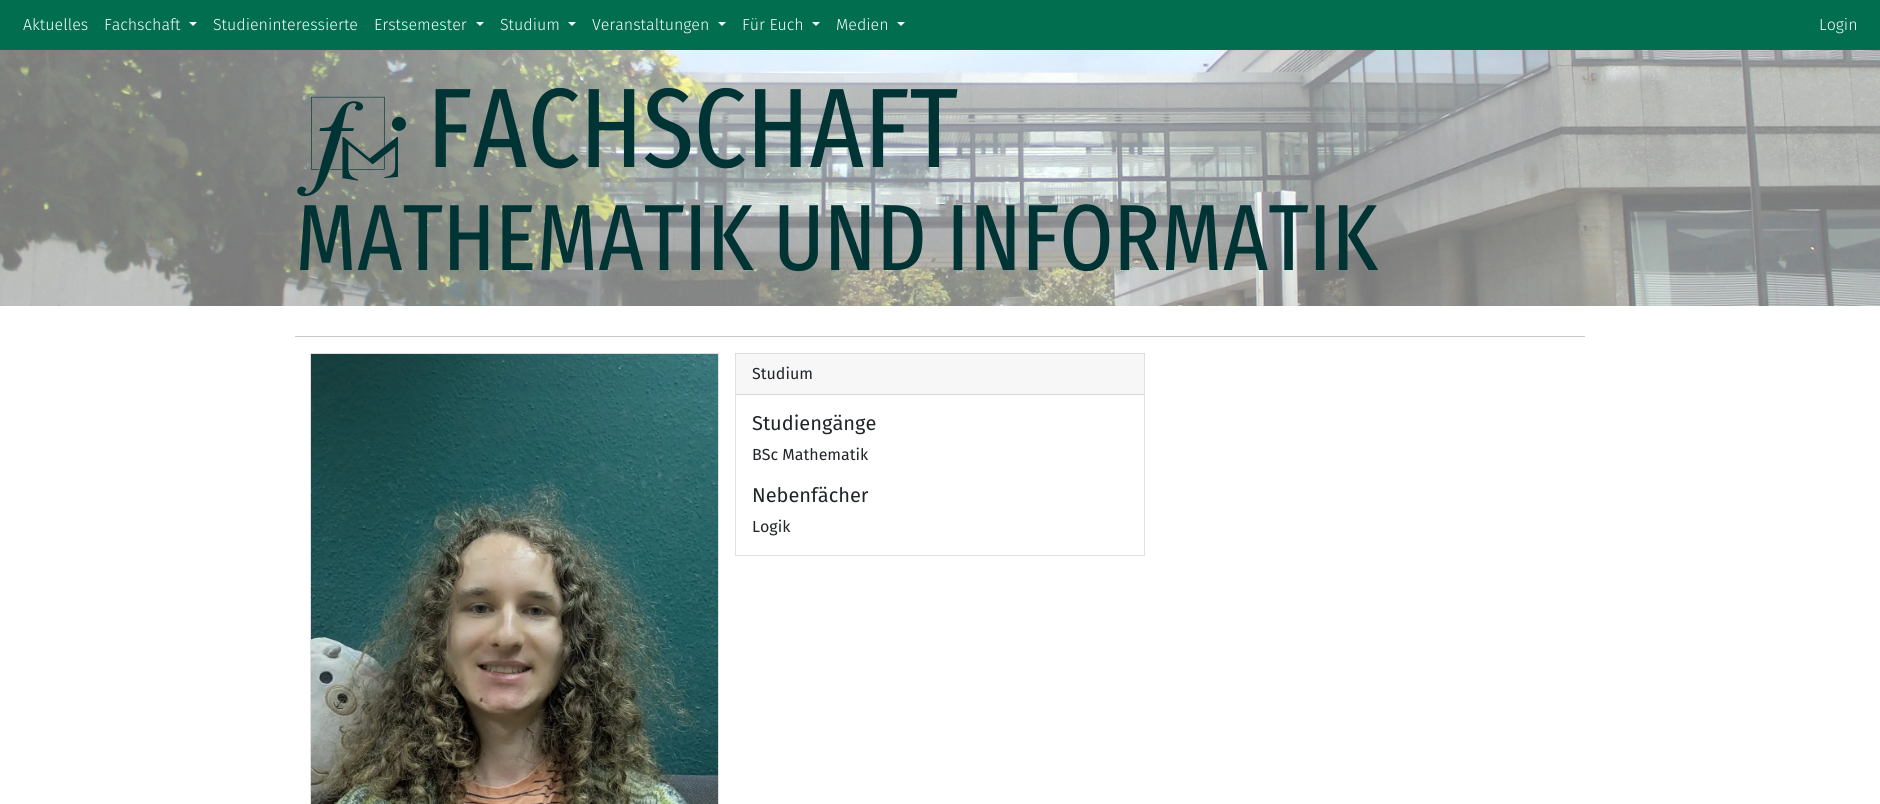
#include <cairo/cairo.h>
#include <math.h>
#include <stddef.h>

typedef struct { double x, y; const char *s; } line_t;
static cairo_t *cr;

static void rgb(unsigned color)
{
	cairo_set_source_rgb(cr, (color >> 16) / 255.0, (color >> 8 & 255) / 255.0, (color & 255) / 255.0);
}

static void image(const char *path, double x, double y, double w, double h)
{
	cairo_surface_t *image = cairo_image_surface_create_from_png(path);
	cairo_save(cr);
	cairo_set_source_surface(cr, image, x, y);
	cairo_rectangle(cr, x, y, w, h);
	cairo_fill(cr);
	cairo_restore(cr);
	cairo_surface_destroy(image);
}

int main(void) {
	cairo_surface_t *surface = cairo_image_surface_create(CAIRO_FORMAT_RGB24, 1880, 804);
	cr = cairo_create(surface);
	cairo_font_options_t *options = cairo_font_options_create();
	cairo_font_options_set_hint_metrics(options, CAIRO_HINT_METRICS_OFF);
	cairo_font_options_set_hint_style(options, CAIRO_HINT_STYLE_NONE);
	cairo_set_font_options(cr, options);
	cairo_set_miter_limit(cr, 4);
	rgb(0xffffff);
	cairo_paint(cr);
	rgb(0x006e4f);
	cairo_rectangle(cr, 0, 0, 1880, 50);
	cairo_fill(cr);
	rgb(0xffffff);
	cairo_new_path(cr);
	cairo_move_to(cr, 189, 22);
	cairo_line_to(cr, 197, 22);
	cairo_line_to(cr, 193, 26);
	cairo_close_path(cr);
	cairo_fill(cr);
	cairo_new_path(cr);
	cairo_move_to(cr, 476, 22);
	cairo_line_to(cr, 484, 22);
	cairo_line_to(cr, 480, 26);
	cairo_close_path(cr);
	cairo_fill(cr);
	cairo_new_path(cr);
	cairo_move_to(cr, 568, 22);
	cairo_line_to(cr, 576, 22);
	cairo_line_to(cr, 572, 26);
	cairo_close_path(cr);
	cairo_fill(cr);
	cairo_new_path(cr);
	cairo_move_to(cr, 718, 22);
	cairo_line_to(cr, 726, 22);
	cairo_line_to(cr, 722, 26);
	cairo_close_path(cr);
	cairo_fill(cr);
	cairo_new_path(cr);
	cairo_move_to(cr, 812, 22);
	cairo_line_to(cr, 820, 22);
	cairo_line_to(cr, 816, 26);
	cairo_close_path(cr);
	cairo_fill(cr);
	cairo_new_path(cr);
	cairo_move_to(cr, 897, 22);
	cairo_line_to(cr, 905, 22);
	cairo_line_to(cr, 901, 26);
	cairo_close_path(cr);
	cairo_fill(cr);
	image("img/1.png", 0, 50, 1880, 256);
	image("img/2.png", 297, 96, 109, 101);
	rgb(0xc8c9ca);
	cairo_rectangle(cr, 295, 336, 1290, 1);
	cairo_fill(cr);
	cairo_rectangle(cr, 310.5, 353.5, 408, 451);
	rgb(0xdfdfdf);
	cairo_set_line_width(cr, 1);
	cairo_stroke(cr);
	image("img/3.png", 311, 354, 407, 450);
	cairo_rectangle(cr, 735.5, 353.5, 409, 202);
	cairo_stroke(cr);
	rgb(0xf7f7f7);
	cairo_rectangle(cr, 736, 354, 408, 40);
	cairo_fill(cr);
	rgb(0xd8d8d8);
	cairo_rectangle(cr, 736, 394, 408, 1);
	cairo_fill(cr);
	cairo_select_font_face(cr, "Fira Sans Light", CAIRO_FONT_SLANT_NORMAL, CAIRO_FONT_WEIGHT_NORMAL);
	cairo_set_font_size(cr, 16);
	rgb(0xffffff);
	{
		static const line_t items[] = {
			{23, 30, "Aktuelles"},
			{104, 30, "Fachschaft"},
			{213, 30, "Studieninteressierte"},
			{374, 30, "Erstsemester"},
			{500, 30, "Studium"},
			{592, 30, "Veranstaltungen"},
			{742, 30, "Für Euch"},
			{836, 30, "Medien"},
			{1819, 30, "Login"},
		};
		for (size_t i = 0; i < sizeof items / sizeof *items; i++) {
			cairo_move_to(cr, items[i].x, items[i].y);
			cairo_show_text(cr, items[i].s);
		}
	}
	cairo_select_font_face(cr, "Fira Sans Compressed", CAIRO_FONT_SLANT_NORMAL, CAIRO_FONT_WEIGHT_NORMAL);
	cairo_set_font_size(cr, 113);
	rgb(0x003333);
	cairo_move_to(cr, 427, 167);
	cairo_show_text(cr, "FACHSCHAFT");
	cairo_set_font_size(cr, 94);
	cairo_move_to(cr, 295, 270);
	cairo_show_text(cr, "MATHEMATIK UND INFORMATIK");
	cairo_select_font_face(cr, "Fira Sans", CAIRO_FONT_SLANT_NORMAL, CAIRO_FONT_WEIGHT_NORMAL);
	cairo_set_font_size(cr, 16);
	rgb(0x212529);
	cairo_move_to(cr, 752, 379);
	cairo_show_text(cr, "Studium");
	cairo_set_font_size(cr, 20);
	cairo_move_to(cr, 752, 430);
	cairo_show_text(cr, "Studiengänge");
	cairo_set_font_size(cr, 16);
	cairo_move_to(cr, 752, 460);
	cairo_show_text(cr, "BSc Mathematik");
	cairo_set_font_size(cr, 20);
	cairo_move_to(cr, 752, 502);
	cairo_show_text(cr, "Nebenfächer");
	cairo_set_font_size(cr, 16);
	cairo_move_to(cr, 752, 532);
	cairo_show_text(cr, "Logik");
	cairo_surface_write_to_png(surface, "page.png");
	cairo_font_options_destroy(options);
	cairo_destroy(cr);
	cairo_surface_destroy(surface);
	return 0;
}
